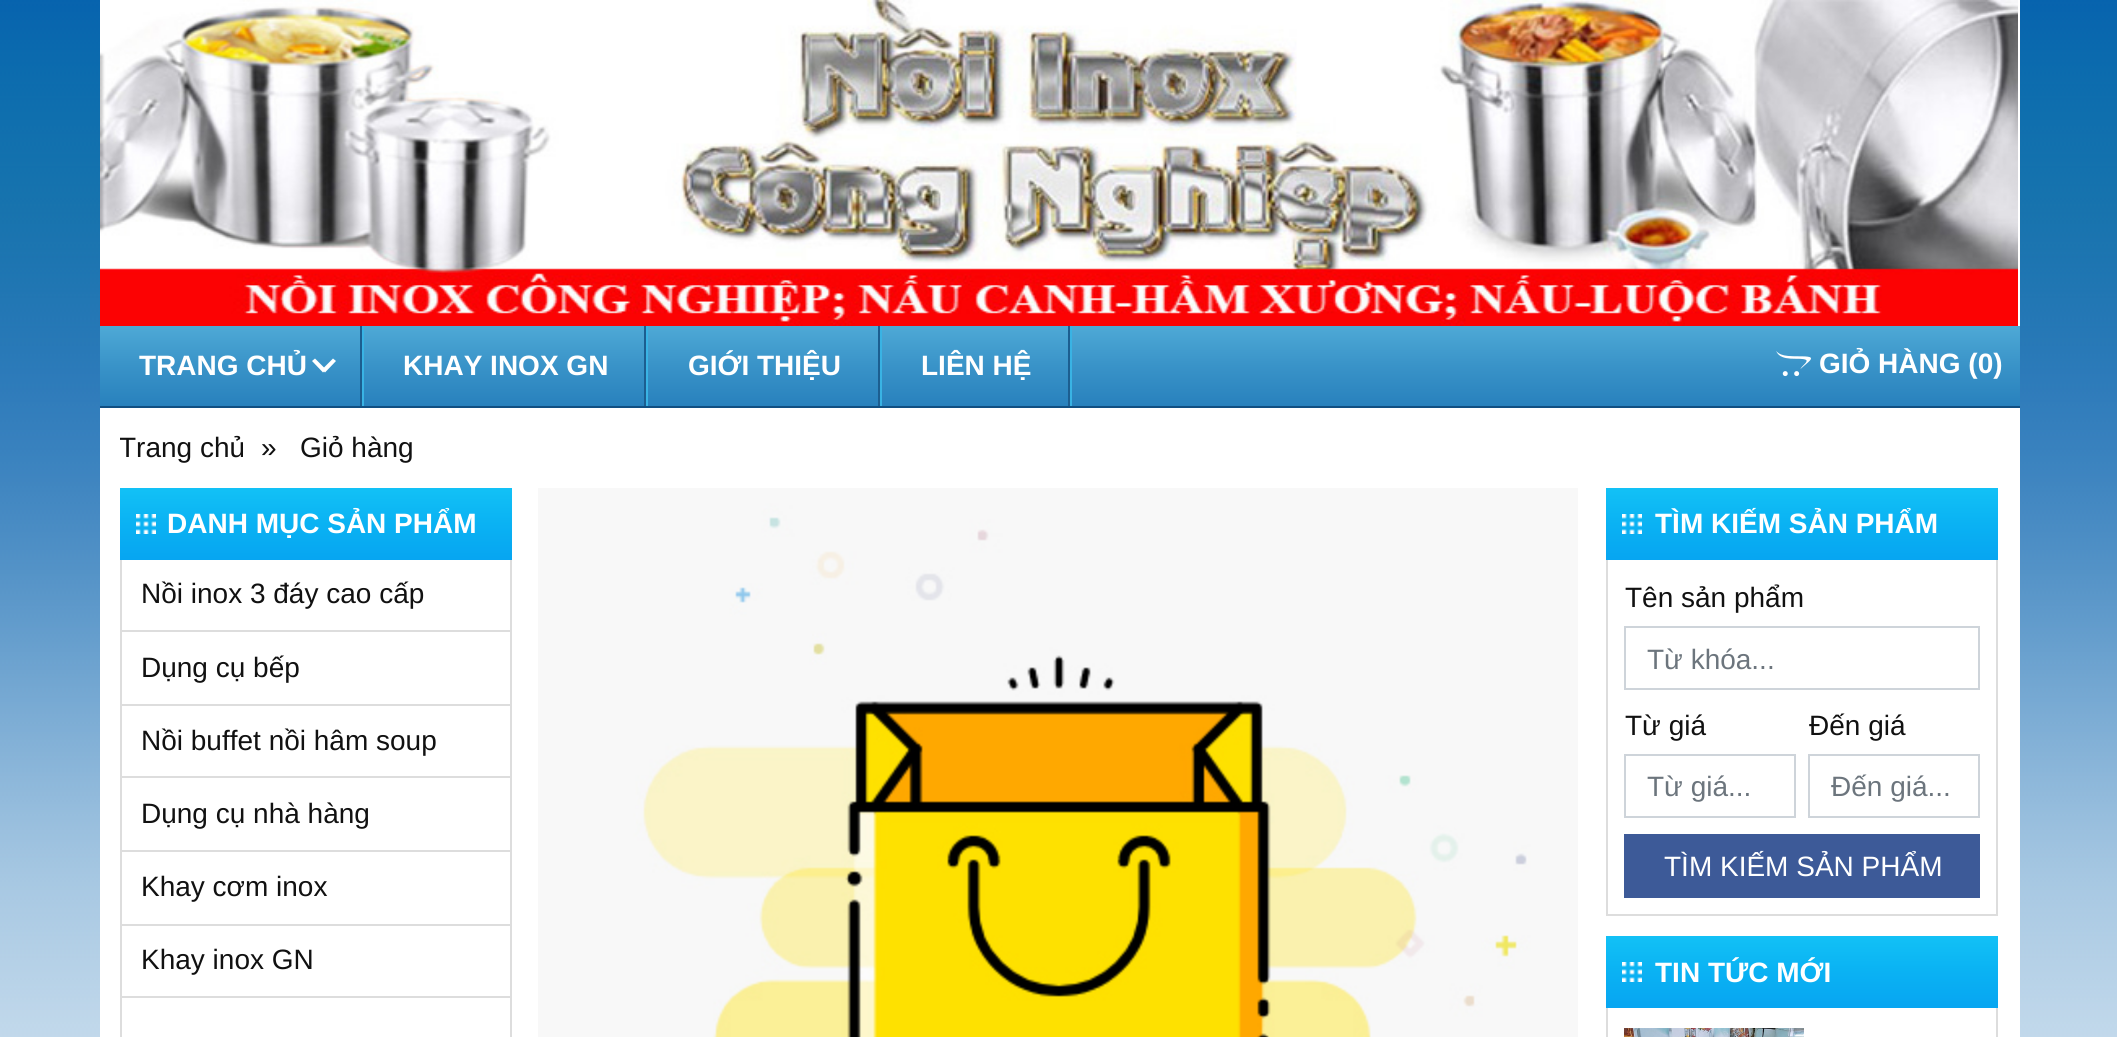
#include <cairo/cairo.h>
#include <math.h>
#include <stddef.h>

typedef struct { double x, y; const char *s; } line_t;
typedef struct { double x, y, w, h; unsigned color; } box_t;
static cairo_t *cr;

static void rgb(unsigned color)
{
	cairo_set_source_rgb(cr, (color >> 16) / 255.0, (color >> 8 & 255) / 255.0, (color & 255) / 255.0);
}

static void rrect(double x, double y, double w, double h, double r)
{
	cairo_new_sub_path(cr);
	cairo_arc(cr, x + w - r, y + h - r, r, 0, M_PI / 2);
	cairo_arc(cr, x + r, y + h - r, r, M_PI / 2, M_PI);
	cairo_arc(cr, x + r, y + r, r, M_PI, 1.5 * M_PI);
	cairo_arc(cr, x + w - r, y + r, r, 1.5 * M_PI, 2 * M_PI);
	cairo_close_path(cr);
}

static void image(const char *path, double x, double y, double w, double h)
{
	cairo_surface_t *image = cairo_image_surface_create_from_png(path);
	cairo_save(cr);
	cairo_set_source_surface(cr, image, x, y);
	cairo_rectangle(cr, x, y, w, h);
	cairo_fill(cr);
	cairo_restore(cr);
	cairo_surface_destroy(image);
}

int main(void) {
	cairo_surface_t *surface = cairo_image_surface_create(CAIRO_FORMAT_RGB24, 2117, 1037);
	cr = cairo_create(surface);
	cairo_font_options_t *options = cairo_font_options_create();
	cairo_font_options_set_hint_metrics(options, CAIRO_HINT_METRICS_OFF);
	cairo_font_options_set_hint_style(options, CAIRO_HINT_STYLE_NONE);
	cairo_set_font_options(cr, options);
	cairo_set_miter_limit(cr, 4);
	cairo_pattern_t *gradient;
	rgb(0xffffff);
	cairo_paint(cr);
	image("img/1.png", 0, 0, 2117, 1037);
	rgb(0xffffff);
	cairo_rectangle(cr, 2018, 0, 2, 326);
	cairo_fill(cr);
	image("img/2.png", 100, 0, 1918, 326);
	cairo_rectangle(cr, 100, 408, 1920, 629);
	cairo_fill(cr);
	gradient = cairo_pattern_create_linear(1060, 326, 1060, 406);
	cairo_pattern_add_color_stop_rgba(gradient, 0, 0.306, 0.663, 0.839, 1);
	cairo_pattern_add_color_stop_rgba(gradient, 0.5, 0.224, 0.576, 0.784, 1);
	cairo_pattern_add_color_stop_rgba(gradient, 1, 0.157, 0.506, 0.741, 1);
	cairo_set_source(cr, gradient);
	cairo_pattern_destroy(gradient);
	cairo_rectangle(cr, 100, 326, 1920, 80);
	cairo_fill(cr);
	rgb(0x104f82);
	cairo_rectangle(cr, 100, 406, 1920, 2);
	cairo_fill(cr);
	rgb(0xffffff);
	cairo_new_path(cr);
	cairo_move_to(cr, 312, 361);
	cairo_line_to(cr, 315, 358.5);
	cairo_line_to(cr, 326, 369.5);
	cairo_line_to(cr, 323, 372.5);
	cairo_close_path(cr);
	cairo_fill(cr);
	cairo_new_path(cr);
	cairo_move_to(cr, 333, 358.5);
	cairo_line_to(cr, 336, 361);
	cairo_line_to(cr, 325, 372.5);
	cairo_line_to(cr, 322, 369.5);
	cairo_close_path(cr);
	cairo_fill(cr);
	{
		static const box_t items[] = {
			{360, 326, 2, 80, 0x1c5e90},
			{362, 326, 2, 80, 0x39b3e4},
			{644, 326, 2, 80, 0x1c5e90},
			{646, 326, 2, 80, 0x39b3e4},
			{878, 326, 2, 80, 0x1c5e90},
			{880, 326, 2, 80, 0x39b3e4},
			{1068, 326, 2, 80, 0x1c5e90},
			{1070, 326, 2, 80, 0x39b3e4},
		};
		for (size_t i = 0; i < sizeof items / sizeof *items; i++) {
			rgb(items[i].color);
			cairo_rectangle(cr, items[i].x, items[i].y, items[i].w, items[i].h);
			cairo_fill(cr);
		}
	}
	image("img/3.png", 1776, 351, 35, 26);
	gradient = cairo_pattern_create_linear(316, 488, 316, 560);
	cairo_pattern_add_color_stop_rgba(gradient, 0, 0.071, 0.757, 0.965, 1);
	cairo_pattern_add_color_stop_rgba(gradient, 0.5, 0.039, 0.698, 0.953, 1);
	cairo_pattern_add_color_stop_rgba(gradient, 1, 0.027, 0.647, 0.945, 1);
	cairo_set_source(cr, gradient);
	cairo_pattern_destroy(gradient);
	cairo_rectangle(cr, 120, 488, 392, 72);
	cairo_fill(cr);
	image("img/4.png", 136, 514, 20, 20);
	{
		static const box_t items[] = {
			{510, 560, 2, 477, 0xdddddd},
			{120, 560, 2, 477, 0xdddddd},
			{122, 630, 388, 2, 0xdddddd},
			{122, 704, 388, 2, 0xdddddd},
			{122, 776, 388, 2, 0xdddddd},
			{122, 850, 388, 2, 0xdddddd},
			{122, 924, 388, 2, 0xdddddd},
			{122, 996, 388, 2, 0xdddddd},
		};
		for (size_t i = 0; i < sizeof items / sizeof *items; i++) {
			rgb(items[i].color);
			cairo_rectangle(cr, items[i].x, items[i].y, items[i].w, items[i].h);
			cairo_fill(cr);
		}
	}
	image("img/5.png", 538, 488, 1040, 549);
	gradient = cairo_pattern_create_linear(1802, 488, 1802, 560);
	cairo_pattern_add_color_stop_rgba(gradient, 0, 0.071, 0.757, 0.965, 1);
	cairo_pattern_add_color_stop_rgba(gradient, 0.5, 0.039, 0.698, 0.953, 1);
	cairo_pattern_add_color_stop_rgba(gradient, 1, 0.027, 0.647, 0.945, 1);
	cairo_set_source(cr, gradient);
	cairo_pattern_destroy(gradient);
	cairo_rectangle(cr, 1606, 488, 392, 72);
	cairo_fill(cr);
	image("img/4.png", 1622, 514, 20, 20);
	{
		static const box_t items[] = {
			{1996, 560, 2, 356, 0xdddddd},
			{1606, 914, 392, 2, 0xdddddd},
			{1606, 560, 2, 356, 0xdddddd},
		};
		for (size_t i = 0; i < sizeof items / sizeof *items; i++) {
			rgb(items[i].color);
			cairo_rectangle(cr, items[i].x, items[i].y, items[i].w, items[i].h);
			cairo_fill(cr);
		}
	}
	cairo_rectangle(cr, 1625, 627, 354, 62);
	rgb(0xced4da);
	cairo_stroke(cr);
	cairo_rectangle(cr, 1625, 755, 170, 62);
	cairo_stroke(cr);
	cairo_rectangle(cr, 1809, 755, 170, 62);
	cairo_stroke(cr);
	rgb(0x3d5a98);
	cairo_rectangle(cr, 1624, 834, 356, 64);
	cairo_fill(cr);
	gradient = cairo_pattern_create_linear(1802, 936, 1802, 1008);
	cairo_pattern_add_color_stop_rgba(gradient, 0, 0.071, 0.757, 0.965, 1);
	cairo_pattern_add_color_stop_rgba(gradient, 0.5, 0.039, 0.698, 0.953, 1);
	cairo_pattern_add_color_stop_rgba(gradient, 1, 0.027, 0.647, 0.945, 1);
	cairo_set_source(cr, gradient);
	cairo_pattern_destroy(gradient);
	cairo_rectangle(cr, 1606, 936, 392, 72);
	cairo_fill(cr);
	image("img/4.png", 1622, 962, 20, 20);
	rgb(0xdddddd);
	cairo_rectangle(cr, 1996, 1008, 2, 29);
	cairo_fill(cr);
	cairo_rectangle(cr, 1606, 1008, 2, 29);
	cairo_fill(cr);
	image("img/6.png", 1624, 1028, 180, 9);
	cairo_select_font_face(cr, "Liberation Sans", CAIRO_FONT_SLANT_NORMAL, CAIRO_FONT_WEIGHT_BOLD);
	cairo_set_font_size(cr, 28);
	rgb(0xffffff);
	{
		static const line_t items[] = {
			{139, 375, "TRANG CHỦ"},
			{403, 375, "KHAY INOX GN"},
			{688, 375, "GIỚI THIỆU"},
			{921, 375, "LIÊN HỆ"},
			{1819, 373, "GIỎ HÀNG (0)"},
		};
		for (size_t i = 0; i < sizeof items / sizeof *items; i++) {
			cairo_move_to(cr, items[i].x, items[i].y);
			cairo_show_text(cr, items[i].s);
		}
	}
	cairo_save(cr);
	rrect(120, 428, 1880, 40, 8);
	cairo_clip(cr);
	cairo_select_font_face(cr, "Liberation Sans", CAIRO_FONT_SLANT_NORMAL, CAIRO_FONT_WEIGHT_NORMAL);
	rgb(0x111111);
	cairo_move_to(cr, 119, 457);
	cairo_show_text(cr, "Trang chủ");
	cairo_restore(cr);
	cairo_select_font_face(cr, "Liberation Sans", CAIRO_FONT_SLANT_NORMAL, CAIRO_FONT_WEIGHT_NORMAL);
	rgb(0x111111);
	cairo_move_to(cr, 261, 457);
	cairo_show_text(cr, "»");
	cairo_move_to(cr, 300, 457);
	cairo_show_text(cr, "Giỏ hàng");
	cairo_select_font_face(cr, "Liberation Sans", CAIRO_FONT_SLANT_NORMAL, CAIRO_FONT_WEIGHT_BOLD);
	rgb(0xffffff);
	cairo_move_to(cr, 167, 533);
	cairo_show_text(cr, "DANH MỤC SẢN PHẨM");
	cairo_select_font_face(cr, "Liberation Sans", CAIRO_FONT_SLANT_NORMAL, CAIRO_FONT_WEIGHT_NORMAL);
	rgb(0x111111);
	{
		static const line_t items[] = {
			{141, 603, "Nồi inox 3 đáy cao cấp"},
			{141, 677, "Dụng cụ bếp"},
			{141, 750, "Nồi buffet nồi hâm soup"},
			{141, 823, "Dụng cụ nhà hàng"},
			{141, 896, "Khay cơm inox"},
			{141, 969, "Khay inox GN"},
		};
		for (size_t i = 0; i < sizeof items / sizeof *items; i++) {
			cairo_move_to(cr, items[i].x, items[i].y);
			cairo_show_text(cr, items[i].s);
		}
	}
	cairo_select_font_face(cr, "Liberation Sans", CAIRO_FONT_SLANT_NORMAL, CAIRO_FONT_WEIGHT_BOLD);
	rgb(0xffffff);
	cairo_move_to(cr, 1655, 533);
	cairo_show_text(cr, "TÌM KIẾM SẢN PHẨM");
	cairo_select_font_face(cr, "Liberation Sans", CAIRO_FONT_SLANT_NORMAL, CAIRO_FONT_WEIGHT_NORMAL);
	rgb(0x111111);
	cairo_move_to(cr, 1625, 607);
	cairo_show_text(cr, "Tên sản phẩm");
	rgb(0x6c757d);
	cairo_move_to(cr, 1647, 669);
	cairo_show_text(cr, "Từ khóa...");
	rgb(0x111111);
	cairo_move_to(cr, 1625, 735);
	cairo_show_text(cr, "Từ giá");
	rgb(0x6c757d);
	cairo_move_to(cr, 1647, 796);
	cairo_show_text(cr, "Từ giá...");
	rgb(0x111111);
	cairo_move_to(cr, 1809, 735);
	cairo_show_text(cr, "Đến giá");
	rgb(0x6c757d);
	cairo_move_to(cr, 1831, 796);
	cairo_show_text(cr, "Đến giá...");
	rgb(0xffffff);
	cairo_move_to(cr, 1664, 876);
	cairo_show_text(cr, "TÌM KIẾM SẢN PHẨM");
	cairo_select_font_face(cr, "Liberation Sans", CAIRO_FONT_SLANT_NORMAL, CAIRO_FONT_WEIGHT_BOLD);
	cairo_move_to(cr, 1655, 982);
	cairo_show_text(cr, "TIN TỨC MỚI");
	cairo_surface_write_to_png(surface, "page.png");
	cairo_font_options_destroy(options);
	cairo_destroy(cr);
	cairo_surface_destroy(surface);
	return 0;
}
